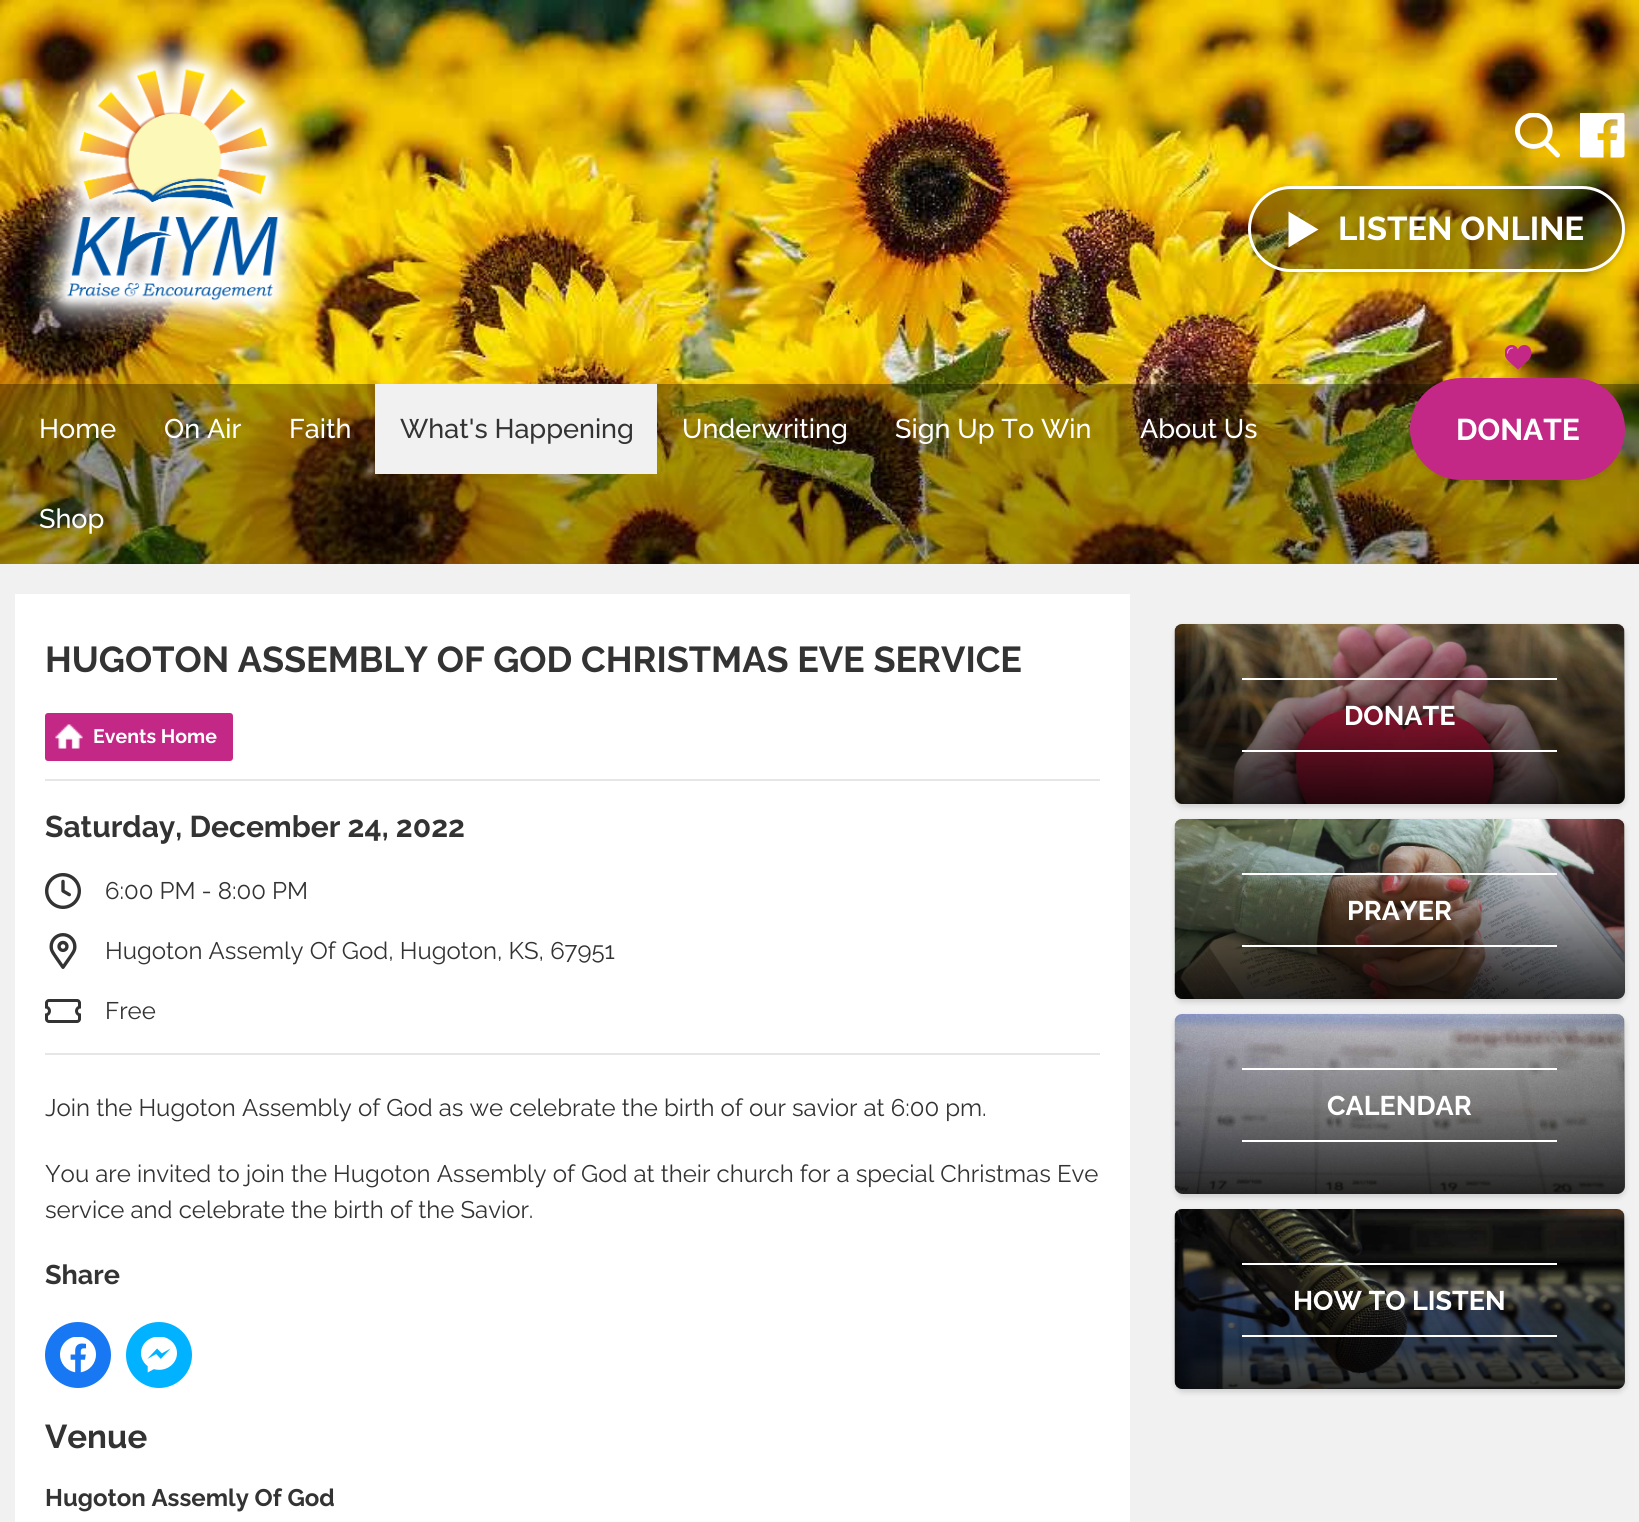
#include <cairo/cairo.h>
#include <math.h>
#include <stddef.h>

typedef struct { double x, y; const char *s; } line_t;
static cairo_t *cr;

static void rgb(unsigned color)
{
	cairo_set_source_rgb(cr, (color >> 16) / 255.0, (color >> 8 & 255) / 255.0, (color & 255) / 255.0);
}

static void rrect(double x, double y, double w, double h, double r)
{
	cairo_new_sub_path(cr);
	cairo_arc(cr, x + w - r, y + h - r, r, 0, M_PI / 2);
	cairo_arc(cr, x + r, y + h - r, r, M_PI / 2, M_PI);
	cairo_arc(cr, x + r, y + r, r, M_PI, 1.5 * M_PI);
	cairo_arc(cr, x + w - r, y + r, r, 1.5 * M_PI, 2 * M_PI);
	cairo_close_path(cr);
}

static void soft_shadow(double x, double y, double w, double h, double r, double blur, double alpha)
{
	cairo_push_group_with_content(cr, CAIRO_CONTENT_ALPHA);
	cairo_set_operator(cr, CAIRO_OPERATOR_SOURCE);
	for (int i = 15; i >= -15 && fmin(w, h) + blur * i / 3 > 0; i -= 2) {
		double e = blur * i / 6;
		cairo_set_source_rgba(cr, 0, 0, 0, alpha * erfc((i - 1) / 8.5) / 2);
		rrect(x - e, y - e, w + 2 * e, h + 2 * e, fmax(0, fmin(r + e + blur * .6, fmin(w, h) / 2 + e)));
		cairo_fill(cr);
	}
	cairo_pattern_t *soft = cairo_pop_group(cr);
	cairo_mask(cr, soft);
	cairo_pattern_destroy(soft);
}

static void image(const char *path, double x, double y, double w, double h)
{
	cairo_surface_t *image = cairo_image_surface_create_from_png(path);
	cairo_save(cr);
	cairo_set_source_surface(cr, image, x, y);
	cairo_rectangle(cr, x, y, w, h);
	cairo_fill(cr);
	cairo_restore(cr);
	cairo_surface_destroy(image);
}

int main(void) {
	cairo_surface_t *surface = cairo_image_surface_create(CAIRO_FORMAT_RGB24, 1639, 1522);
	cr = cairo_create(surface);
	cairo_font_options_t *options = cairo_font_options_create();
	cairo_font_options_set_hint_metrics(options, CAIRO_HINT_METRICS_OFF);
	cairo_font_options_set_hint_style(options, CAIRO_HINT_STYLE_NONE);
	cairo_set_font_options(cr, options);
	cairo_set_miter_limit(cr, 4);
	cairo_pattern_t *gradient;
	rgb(0xf1f1f1);
	cairo_paint(cr);
	image("img/1.png", 0, 0, 1639, 564);
	image("img/2.png", 30, 32, 286, 306);
	image("img/3.png", 1515, 113, 45, 45);
	image("img/4.png", 1580, 113, 45, 45);
	cairo_save(cr);
	cairo_set_fill_rule(cr, CAIRO_FILL_RULE_EVEN_ODD);
	cairo_new_path(cr);
	cairo_move_to(cr, 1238, 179);
	cairo_line_to(cr, 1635, 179);
	cairo_line_to(cr, 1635, 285);
	cairo_line_to(cr, 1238, 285);
	cairo_close_path(cr);
	cairo_move_to(cr, 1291, 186);
	cairo_line_to(cr, 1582, 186);
	cairo_curve_to(cr, 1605.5, 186, 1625, 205.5, 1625, 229);
	cairo_curve_to(cr, 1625, 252.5, 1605.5, 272, 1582, 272);
	cairo_line_to(cr, 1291, 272);
	cairo_curve_to(cr, 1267.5, 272, 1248, 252.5, 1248, 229);
	cairo_curve_to(cr, 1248, 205.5, 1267.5, 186, 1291, 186);
	cairo_close_path(cr);
	cairo_clip(cr);
	rgb(0x000000);
	soft_shadow(1248, 189, 377, 86, 43, 3, 0.15);
	cairo_restore(cr);
	cairo_set_source_rgba(cr, 0, 0, 0, 0.35);
	rrect(1249.5, 187.5, 374, 83, 41.5);
	cairo_fill_preserve(cr);
	rgb(0xffffff);
	cairo_set_line_width(cr, 3);
	cairo_stroke(cr);
	cairo_new_path(cr);
	cairo_move_to(cr, 1288.5, 247.5);
	cairo_line_to(cr, 1288.5, 211.5);
	cairo_line_to(cr, 1318.5, 229.5);
	cairo_close_path(cr);
	cairo_fill(cr);
	cairo_set_source_rgba(cr, 0, 0, 0, 0.35);
	cairo_rectangle(cr, 0, 384, 1639, 180);
	cairo_fill(cr);
	rgb(0xf1f1f1);
	cairo_rectangle(cr, 375, 384, 282, 90);
	cairo_fill(cr);
	rgb(0x000000);
	soft_shadow(1410, 381, 215, 102, 51, 3, 0.1);
	rgb(0xc42886);
	rrect(1410, 378, 215, 102, 51);
	cairo_fill(cr);
	image("img/5.png", 1505, 345, 27, 25);
	rgb(0xffffff);
	cairo_rectangle(cr, 15, 594, 1115, 928);
	cairo_fill(cr);
	rgb(0xc42886);
	rrect(45, 713, 188, 48, 3);
	cairo_fill(cr);
	image("img/6.png", 55, 724, 28, 25);
	rgb(0xe6e6e6);
	cairo_rectangle(cr, 45, 779, 1055, 2);
	cairo_fill(cr);
	cairo_rectangle(cr, 45, 1053, 1055, 2);
	cairo_fill(cr);
	image("img/7.png", 45, 873, 36, 36);
	image("img/8.png", 49, 933, 28, 36);
	image("img/9.png", 45, 999, 36, 24);
	rgb(0x1877f2);
	cairo_arc(cr, 78, 1355, 33, 0, 2 * M_PI);
	cairo_fill(cr);
	image("img/10.png", 60, 1337, 36, 36);
	rgb(0x00b2ff);
	cairo_arc(cr, 159, 1355, 33, 0, 2 * M_PI);
	cairo_fill(cr);
	image("img/11.png", 141, 1337, 36, 36);
	rgb(0x000000);
	soft_shadow(1175, 627, 450, 180, 8, 3, 0.15);
	image("img/12.png", 1174, 624, 451, 180);
	gradient = cairo_pattern_create_linear(1400, 624, 1400, 804);
	cairo_pattern_add_color_stop_rgba(gradient, 0, 0, 0, 0, 0);
	cairo_pattern_add_color_stop_rgba(gradient, 0.5, 0, 0, 0, 0.32);
	cairo_pattern_add_color_stop_rgba(gradient, 1, 0, 0, 0, 0.8);
	cairo_set_source(cr, gradient);
	cairo_pattern_destroy(gradient);
	rrect(1175, 624, 450, 180, 8);
	cairo_fill(cr);
	rgb(0xffffff);
	cairo_rectangle(cr, 1242, 678, 315, 2);
	cairo_fill(cr);
	cairo_rectangle(cr, 1242, 750, 315, 2);
	cairo_fill(cr);
	rgb(0x000000);
	soft_shadow(1175, 822, 450, 180, 8, 3, 0.15);
	image("img/13.png", 1174, 819, 451, 180);
	gradient = cairo_pattern_create_linear(1400, 819, 1400, 999);
	cairo_pattern_add_color_stop_rgba(gradient, 0, 0, 0, 0, 0);
	cairo_pattern_add_color_stop_rgba(gradient, 0.5, 0, 0, 0, 0.32);
	cairo_pattern_add_color_stop_rgba(gradient, 1, 0, 0, 0, 0.8);
	cairo_set_source(cr, gradient);
	cairo_pattern_destroy(gradient);
	rrect(1175, 819, 450, 180, 8);
	cairo_fill(cr);
	rgb(0xffffff);
	cairo_rectangle(cr, 1242, 873, 315, 2);
	cairo_fill(cr);
	cairo_rectangle(cr, 1242, 945, 315, 2);
	cairo_fill(cr);
	rgb(0x000000);
	soft_shadow(1175, 1017, 450, 180, 8, 3, 0.15);
	image("img/14.png", 1174, 1014, 451, 180);
	gradient = cairo_pattern_create_linear(1400, 1014, 1400, 1194);
	cairo_pattern_add_color_stop_rgba(gradient, 0, 0, 0, 0, 0);
	cairo_pattern_add_color_stop_rgba(gradient, 0.5, 0, 0, 0, 0.32);
	cairo_pattern_add_color_stop_rgba(gradient, 1, 0, 0, 0, 0.8);
	cairo_set_source(cr, gradient);
	cairo_pattern_destroy(gradient);
	rrect(1175, 1014, 450, 180, 8);
	cairo_fill(cr);
	rgb(0xffffff);
	cairo_rectangle(cr, 1242, 1068, 315, 2);
	cairo_fill(cr);
	cairo_rectangle(cr, 1242, 1140, 315, 2);
	cairo_fill(cr);
	rgb(0x000000);
	soft_shadow(1175, 1212, 450, 180, 8, 3, 0.15);
	image("img/15.png", 1174, 1209, 451, 180);
	gradient = cairo_pattern_create_linear(1400, 1209, 1400, 1389);
	cairo_pattern_add_color_stop_rgba(gradient, 0, 0, 0, 0, 0);
	cairo_pattern_add_color_stop_rgba(gradient, 0.5, 0, 0, 0, 0.32);
	cairo_pattern_add_color_stop_rgba(gradient, 1, 0, 0, 0, 0.8);
	cairo_set_source(cr, gradient);
	cairo_pattern_destroy(gradient);
	rrect(1175, 1209, 450, 180, 8);
	cairo_fill(cr);
	rgb(0xffffff);
	cairo_rectangle(cr, 1242, 1263, 315, 2);
	cairo_fill(cr);
	cairo_rectangle(cr, 1242, 1335, 315, 2);
	cairo_fill(cr);
	cairo_select_font_face(cr, "Raleway", CAIRO_FONT_SLANT_NORMAL, CAIRO_FONT_WEIGHT_BOLD);
	cairo_set_font_size(cr, 33);
	cairo_move_to(cr, 1338, 240);
	cairo_show_text(cr, "LISTEN ONLINE");
	cairo_select_font_face(cr, "Raleway Medium", CAIRO_FONT_SLANT_NORMAL, CAIRO_FONT_WEIGHT_NORMAL);
	cairo_set_font_size(cr, 27);
	{
		static const line_t items[] = {
			{39, 438, "Home"},
			{164, 438, "On Air"},
			{289, 438, "Faith"},
		};
		for (size_t i = 0; i < sizeof items / sizeof *items; i++) {
			cairo_move_to(cr, items[i].x, items[i].y);
			cairo_show_text(cr, items[i].s);
		}
	}
	rgb(0x333333);
	cairo_move_to(cr, 400, 438);
	cairo_show_text(cr, "What's Happening");
	rgb(0xffffff);
	{
		static const line_t items[] = {
			{682, 438, "Underwriting"},
			{895, 438, "Sign Up To Win"},
			{1140, 438, "About Us"},
			{39, 528, "Shop"},
		};
		for (size_t i = 0; i < sizeof items / sizeof *items; i++) {
			cairo_move_to(cr, items[i].x, items[i].y);
			cairo_show_text(cr, items[i].s);
		}
	}
	cairo_select_font_face(cr, "Raleway", CAIRO_FONT_SLANT_NORMAL, CAIRO_FONT_WEIGHT_BOLD);
	cairo_set_font_size(cr, 30);
	cairo_move_to(cr, 1456, 440);
	cairo_show_text(cr, "DONATE");
	cairo_set_font_size(cr, 36);
	rgb(0x333333);
	cairo_move_to(cr, 45, 672);
	cairo_show_text(cr, "HUGOTON ASSEMBLY OF GOD CHRISTMAS EVE SERVICE");
	cairo_set_font_size(cr, 19.5);
	rgb(0xffffff);
	cairo_move_to(cr, 93, 743);
	cairo_show_text(cr, "Events Home");
	cairo_set_font_size(cr, 30);
	rgb(0x333333);
	cairo_move_to(cr, 45, 837);
	cairo_show_text(cr, "Saturday, December 24, 2022");
	cairo_select_font_face(cr, "Raleway", CAIRO_FONT_SLANT_NORMAL, CAIRO_FONT_WEIGHT_NORMAL);
	cairo_set_font_size(cr, 24);
	{
		static const line_t items[] = {
			{105, 899, "6:00 PM - 8:00 PM"},
			{105, 959, "Hugoton Assemly Of God, Hugoton, KS, 67951"},
			{105, 1019, "Free"},
			{45, 1116, "Join the Hugoton Assembly of God as we celebrate the birth of our savior at 6:00 pm."},
			{45, 1182, "You are invited to join the Hugoton Assembly of God at their church for a special Christmas Eve"},
			{45, 1218, "service and celebrate the birth of the Savior."},
		};
		for (size_t i = 0; i < sizeof items / sizeof *items; i++) {
			cairo_move_to(cr, items[i].x, items[i].y);
			cairo_show_text(cr, items[i].s);
		}
	}
	cairo_select_font_face(cr, "Raleway", CAIRO_FONT_SLANT_NORMAL, CAIRO_FONT_WEIGHT_BOLD);
	cairo_set_font_size(cr, 27);
	cairo_move_to(cr, 45, 1284);
	cairo_show_text(cr, "Share");
	cairo_set_font_size(cr, 33);
	cairo_move_to(cr, 45, 1448);
	cairo_show_text(cr, "Venue");
	cairo_set_font_size(cr, 24);
	cairo_move_to(cr, 45, 1506);
	cairo_show_text(cr, "Hugoton Assemly Of God");
	cairo_set_font_size(cr, 27);
	rgb(0xffffff);
	{
		static const line_t items[] = {
			{1344, 725, "DONATE"},
			{1347, 920, "PRAYER"},
			{1327, 1115, "CALENDAR"},
			{1293, 1310, "HOW TO LISTEN"},
		};
		for (size_t i = 0; i < sizeof items / sizeof *items; i++) {
			cairo_move_to(cr, items[i].x, items[i].y);
			cairo_show_text(cr, items[i].s);
		}
	}
	cairo_surface_write_to_png(surface, "page.png");
	cairo_font_options_destroy(options);
	cairo_destroy(cr);
	cairo_surface_destroy(surface);
	return 0;
}
